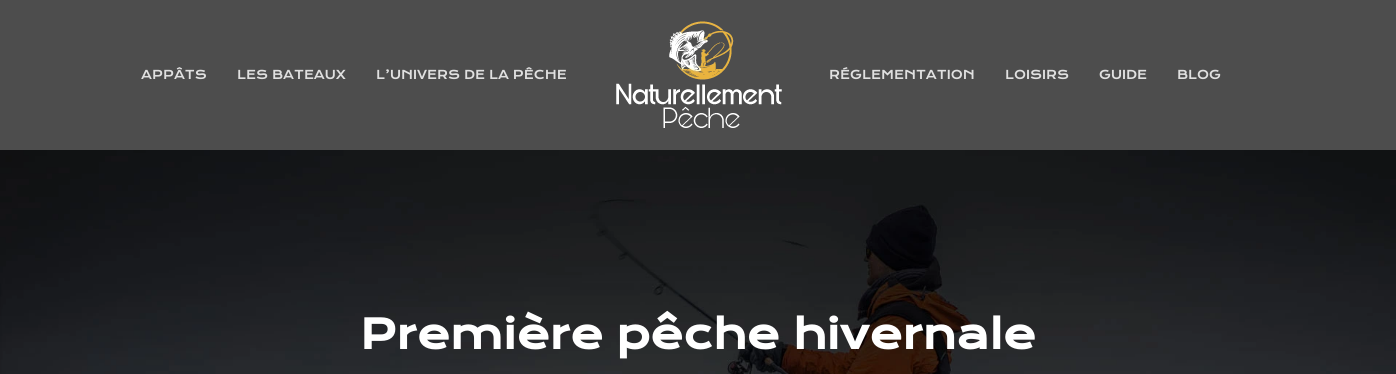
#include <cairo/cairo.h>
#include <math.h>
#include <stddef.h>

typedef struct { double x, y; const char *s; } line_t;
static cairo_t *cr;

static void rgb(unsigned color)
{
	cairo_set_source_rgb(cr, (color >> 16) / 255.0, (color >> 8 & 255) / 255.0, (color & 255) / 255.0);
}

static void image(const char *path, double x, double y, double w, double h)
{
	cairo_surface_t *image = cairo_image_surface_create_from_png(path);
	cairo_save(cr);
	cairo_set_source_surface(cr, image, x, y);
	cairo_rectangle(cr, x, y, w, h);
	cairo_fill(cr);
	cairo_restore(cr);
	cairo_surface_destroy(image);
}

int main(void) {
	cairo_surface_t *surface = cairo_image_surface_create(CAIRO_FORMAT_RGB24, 1396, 374);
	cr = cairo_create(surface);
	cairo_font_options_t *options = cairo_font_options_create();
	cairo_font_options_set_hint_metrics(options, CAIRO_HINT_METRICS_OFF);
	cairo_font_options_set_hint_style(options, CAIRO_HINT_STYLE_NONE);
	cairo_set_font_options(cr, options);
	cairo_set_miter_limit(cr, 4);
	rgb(0x4d4d4d);
	cairo_paint(cr);
	image("img/1.png", 616, 21, 166, 107);
	image("img/2.png", 0, 150, 1396, 224);
	cairo_select_font_face(cr, "Krona One", CAIRO_FONT_SLANT_NORMAL, CAIRO_FONT_WEIGHT_NORMAL);
	cairo_set_font_size(cr, 12);
	rgb(0xe0e0e0);
	{
		static const line_t items[] = {
			{141, 79, "APPÂTS"},
			{237, 79, "LES BATEAUX"},
			{376, 79, "L’UNIVERS DE LA PÊCHE"},
			{829, 79, "RÉGLEMENTATION"},
			{1005, 79, "LOISIRS"},
			{1099, 79, "GUIDE"},
			{1177, 79, "BLOG"},
		};
		for (size_t i = 0; i < sizeof items / sizeof *items; i++) {
			cairo_move_to(cr, items[i].x, items[i].y);
			cairo_show_text(cr, items[i].s);
		}
	}
	cairo_select_font_face(cr, "Krona One", CAIRO_FONT_SLANT_NORMAL, CAIRO_FONT_WEIGHT_BOLD);
	cairo_set_font_size(cr, 40);
	rgb(0xffffff);
	cairo_move_to(cr, 360, 349);
	cairo_show_text(cr, "Première pêche hivernale");
	cairo_surface_write_to_png(surface, "page.png");
	cairo_font_options_destroy(options);
	cairo_destroy(cr);
	cairo_surface_destroy(surface);
	return 0;
}
